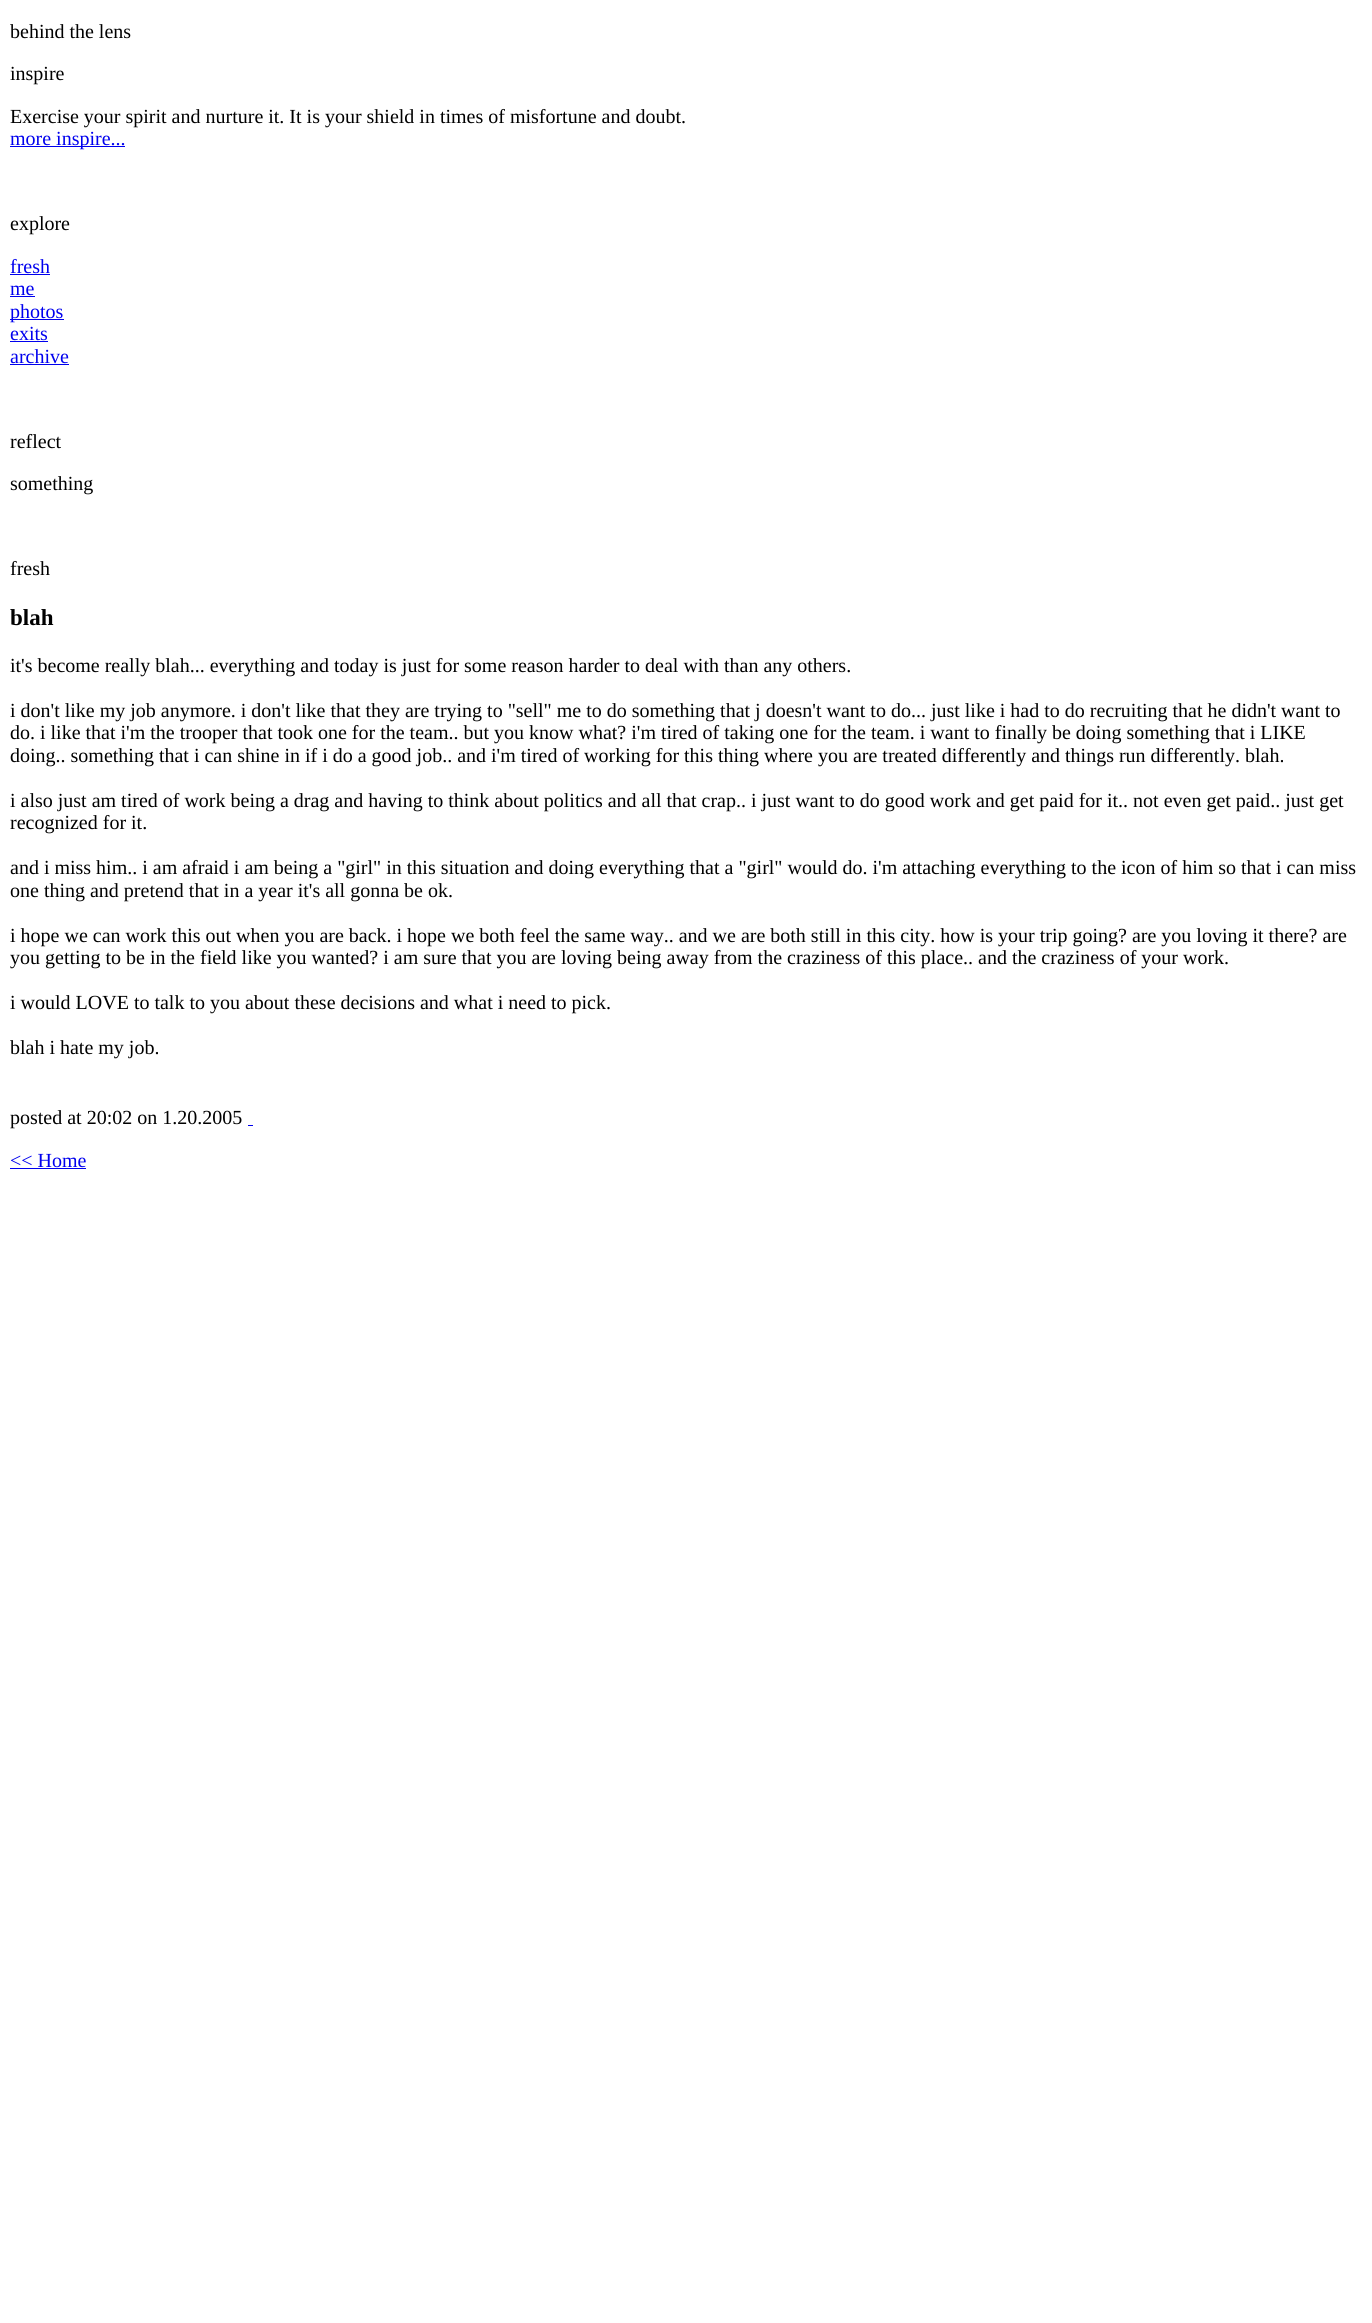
#include <cairo/cairo.h>
#include <math.h>
#include <stddef.h>

typedef struct { double x, y; const char *s; } line_t;
typedef struct { double x, y, w, h; unsigned color; } box_t;
static cairo_t *cr;

static void rgb(unsigned color)
{
	cairo_set_source_rgb(cr, (color >> 16) / 255.0, (color >> 8 & 255) / 255.0, (color & 255) / 255.0);
}

int main(void) {
	cairo_surface_t *surface = cairo_image_surface_create(CAIRO_FORMAT_RGB24, 1372, 2323);
	cr = cairo_create(surface);
	cairo_font_options_t *options = cairo_font_options_create();
	cairo_font_options_set_hint_metrics(options, CAIRO_HINT_METRICS_OFF);
	cairo_font_options_set_hint_style(options, CAIRO_HINT_STYLE_NONE);
	cairo_set_font_options(cr, options);
	cairo_set_miter_limit(cr, 4);
	rgb(0xffffff);
	cairo_paint(cr);
	{
		static const box_t items[] = {
			{10, 146, 115, 1, 0x0000ee},
			{10, 274, 40, 1, 0x0000ee},
			{10, 296, 25, 1, 0x0000ee},
			{10, 319, 54, 1, 0x0000ee},
			{10, 341, 38, 1, 0x0000ee},
			{10, 364, 59, 1, 0x0000ee},
			{248, 1125, 5, 1, 0x0000ee},
			{10, 1168, 76, 1, 0x0000ee},
		};
		for (size_t i = 0; i < sizeof items / sizeof *items; i++) {
			rgb(items[i].color);
			cairo_rectangle(cr, items[i].x, items[i].y, items[i].w, items[i].h);
			cairo_fill(cr);
		}
	}
	cairo_select_font_face(cr, "Liberation Serif", CAIRO_FONT_SLANT_NORMAL, CAIRO_FONT_WEIGHT_NORMAL);
	cairo_set_font_size(cr, 20);
	rgb(0x000000);
	{
		static const line_t items[] = {
			{10, 38, "behind the lens"},
			{10, 80, "inspire"},
			{10, 123, "Exercise your spirit and nurture it. It is your shield in times of misfortune and doubt."},
		};
		for (size_t i = 0; i < sizeof items / sizeof *items; i++) {
			cairo_move_to(cr, items[i].x, items[i].y);
			cairo_show_text(cr, items[i].s);
		}
	}
	rgb(0x0000ee);
	cairo_move_to(cr, 10, 145);
	cairo_show_text(cr, "more inspire...");
	rgb(0x000000);
	cairo_move_to(cr, 10, 230);
	cairo_show_text(cr, "explore");
	rgb(0x0000ee);
	{
		static const line_t items[] = {
			{10, 273, "fresh"},
			{10, 295, "me"},
			{10, 318, "photos"},
			{10, 340, "exits"},
			{10, 363, "archive"},
		};
		for (size_t i = 0; i < sizeof items / sizeof *items; i++) {
			cairo_move_to(cr, items[i].x, items[i].y);
			cairo_show_text(cr, items[i].s);
		}
	}
	rgb(0x000000);
	{
		static const line_t items[] = {
			{10, 448, "reflect"},
			{10, 490, "something"},
			{10, 575, "fresh"},
		};
		for (size_t i = 0; i < sizeof items / sizeof *items; i++) {
			cairo_move_to(cr, items[i].x, items[i].y);
			cairo_show_text(cr, items[i].s);
		}
	}
	cairo_select_font_face(cr, "Liberation Serif", CAIRO_FONT_SLANT_NORMAL, CAIRO_FONT_WEIGHT_BOLD);
	cairo_set_font_size(cr, 23);
	cairo_move_to(cr, 10, 625);
	cairo_show_text(cr, "blah");
	cairo_select_font_face(cr, "Liberation Serif", CAIRO_FONT_SLANT_NORMAL, CAIRO_FONT_WEIGHT_NORMAL);
	cairo_set_font_size(cr, 20);
	{
		static const line_t items[] = {
			{10, 672, "it's become really blah... everything and today is just for some reason harder to deal with than any others."},
			{10, 717, "i don't like my job anymore. i don't like that they are trying to \"sell\" me to do something that j doesn't want to do... just like i had to do recruiting that he didn't want to"},
			{10, 739, "do. i like that i'm the trooper that took one for the team.. but you know what? i'm tired of taking one for the team. i want to finally be doing something that i LIKE"},
			{10, 762, "doing.. something that i can shine in if i do a good job.. and i'm tired of working for this thing where you are treated differently and things run differently. blah."},
			{10, 807, "i also just am tired of work being a drag and having to think about politics and all that crap.. i just want to do good work and get paid for it.. not even get paid.. just get"},
			{10, 829, "recognized for it."},
			{10, 874, "and i miss him.. i am afraid i am being a \"girl\" in this situation and doing everything that a \"girl\" would do. i'm attaching everything to the icon of him so that i can miss"},
			{10, 897, "one thing and pretend that in a year it's all gonna be ok."},
			{10, 942, "i hope we can work this out when you are back. i hope we both feel the same way.. and we are both still in this city. how is your trip going? are you loving it there? are"},
			{10, 964, "you getting to be in the field like you wanted? i am sure that you are loving being away from the craziness of this place.. and the craziness of your work."},
			{10, 1009, "i would LOVE to talk to you about these decisions and what i need to pick."},
			{10, 1054, "blah i hate my job."},
			{10, 1124, "posted at 20:02 on 1.20.2005"},
		};
		for (size_t i = 0; i < sizeof items / sizeof *items; i++) {
			cairo_move_to(cr, items[i].x, items[i].y);
			cairo_show_text(cr, items[i].s);
		}
	}
	rgb(0x0000ee);
	cairo_move_to(cr, 10, 1167);
	cairo_show_text(cr, "<< Home");
	cairo_surface_write_to_png(surface, "page.png");
	cairo_font_options_destroy(options);
	cairo_destroy(cr);
	cairo_surface_destroy(surface);
	return 0;
}
